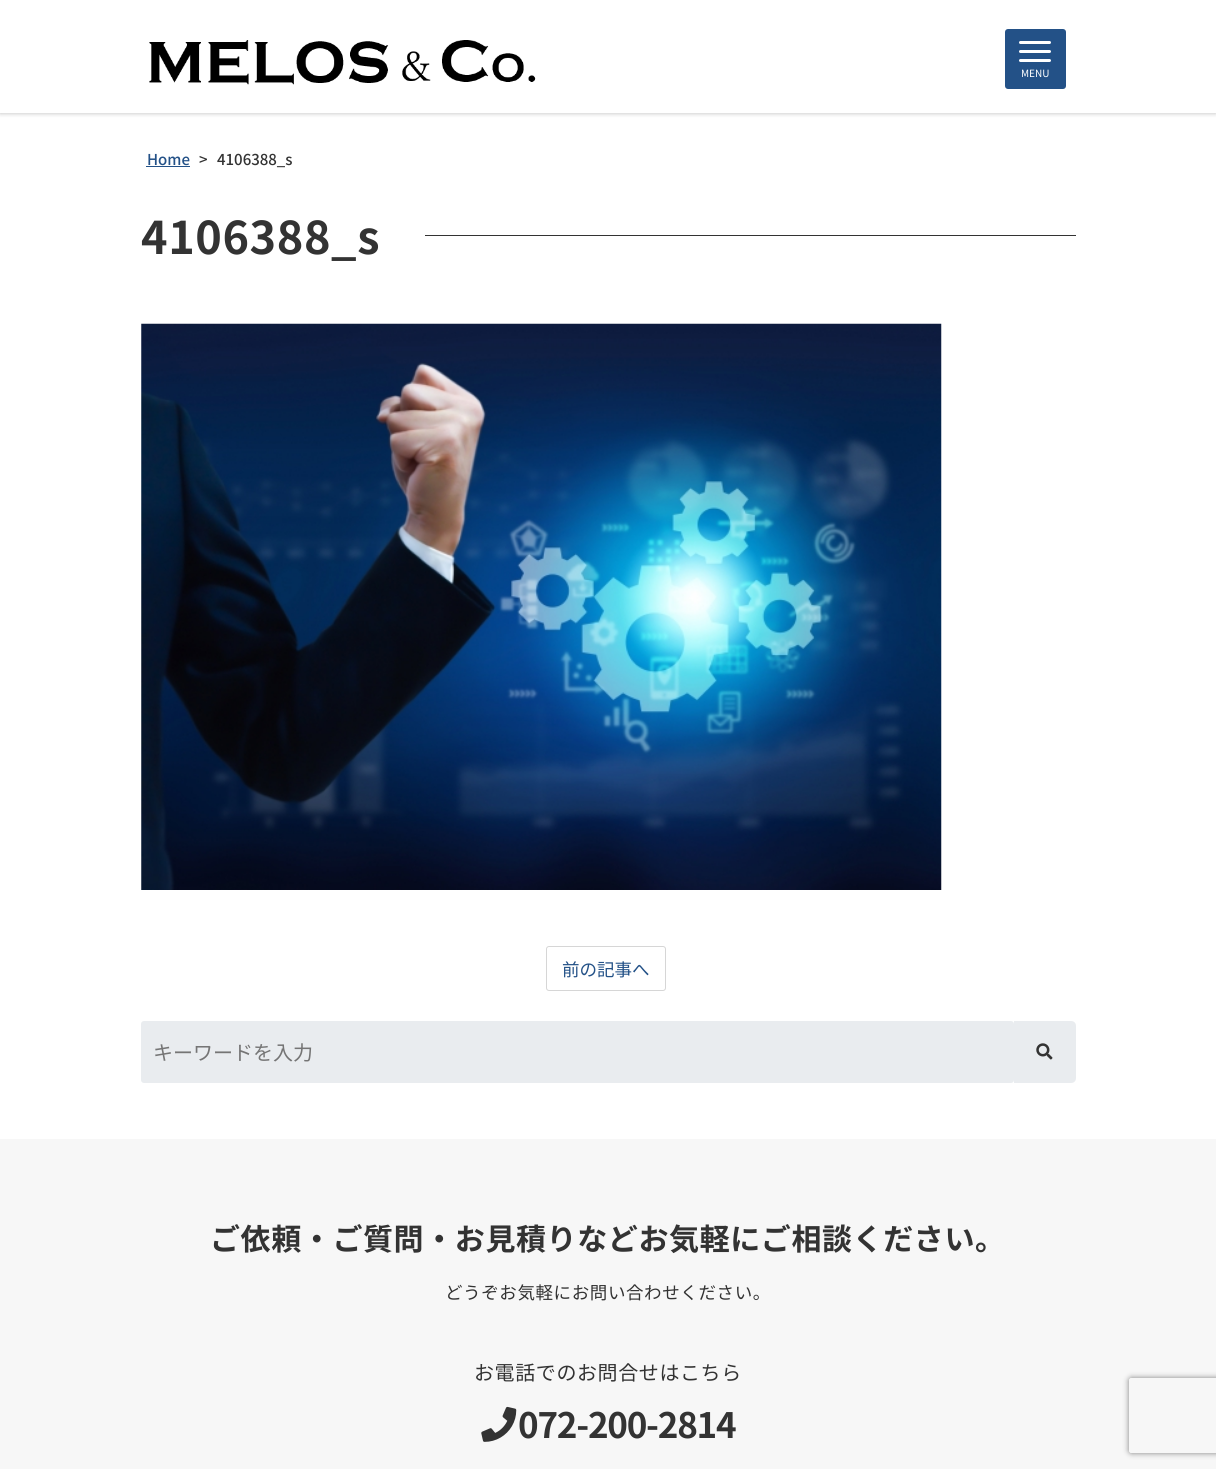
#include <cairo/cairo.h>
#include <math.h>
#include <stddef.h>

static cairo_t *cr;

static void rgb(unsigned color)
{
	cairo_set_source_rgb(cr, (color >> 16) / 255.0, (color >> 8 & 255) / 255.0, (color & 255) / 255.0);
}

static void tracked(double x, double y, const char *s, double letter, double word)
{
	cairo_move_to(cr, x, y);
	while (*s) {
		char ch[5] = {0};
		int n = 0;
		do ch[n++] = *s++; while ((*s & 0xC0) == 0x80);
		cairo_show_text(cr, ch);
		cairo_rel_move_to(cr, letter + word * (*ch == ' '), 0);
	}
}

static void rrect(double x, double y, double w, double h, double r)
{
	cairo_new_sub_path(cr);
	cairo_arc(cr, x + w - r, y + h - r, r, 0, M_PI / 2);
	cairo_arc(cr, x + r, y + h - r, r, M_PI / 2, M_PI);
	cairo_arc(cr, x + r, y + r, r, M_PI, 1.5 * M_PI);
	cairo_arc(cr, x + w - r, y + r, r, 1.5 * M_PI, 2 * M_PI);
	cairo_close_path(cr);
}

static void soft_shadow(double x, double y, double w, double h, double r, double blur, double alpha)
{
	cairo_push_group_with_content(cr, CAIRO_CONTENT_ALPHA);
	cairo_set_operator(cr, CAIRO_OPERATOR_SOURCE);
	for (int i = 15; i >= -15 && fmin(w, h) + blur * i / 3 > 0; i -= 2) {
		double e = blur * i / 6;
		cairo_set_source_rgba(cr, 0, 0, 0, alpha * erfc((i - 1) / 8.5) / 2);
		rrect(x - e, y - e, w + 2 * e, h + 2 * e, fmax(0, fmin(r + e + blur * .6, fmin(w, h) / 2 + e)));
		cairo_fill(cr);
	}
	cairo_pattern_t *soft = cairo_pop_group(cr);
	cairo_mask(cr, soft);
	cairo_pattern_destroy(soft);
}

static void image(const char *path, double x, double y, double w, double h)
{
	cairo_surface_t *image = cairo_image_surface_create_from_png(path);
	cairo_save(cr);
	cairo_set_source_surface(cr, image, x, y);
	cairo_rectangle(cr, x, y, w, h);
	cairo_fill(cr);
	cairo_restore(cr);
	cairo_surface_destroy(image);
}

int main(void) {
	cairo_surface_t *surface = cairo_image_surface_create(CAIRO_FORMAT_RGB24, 1216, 1469);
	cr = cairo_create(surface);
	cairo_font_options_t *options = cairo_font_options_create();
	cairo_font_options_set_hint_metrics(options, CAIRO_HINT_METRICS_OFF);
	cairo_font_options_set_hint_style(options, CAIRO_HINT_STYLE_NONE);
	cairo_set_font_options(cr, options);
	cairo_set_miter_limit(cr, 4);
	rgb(0xffffff);
	cairo_paint(cr);
	rgb(0x000000);
	soft_shadow(0, 1, 1216, 113, 0, 2, 0.2);
	rgb(0xffffff);
	cairo_rectangle(cr, 0, 0, 1216, 113);
	cairo_fill(cr);
	image("img/1.png", 149, 40, 387, 45);
	rgb(0x235187);
	rrect(1005, 29, 61, 60, 3);
	cairo_fill(cr);
	rgb(0xffffff);
	rrect(1019, 41, 32, 3, 1.5);
	cairo_fill(cr);
	rrect(1019, 50, 32, 3, 1.5);
	cairo_fill(cr);
	rrect(1019, 59, 32, 3, 1.5);
	cairo_fill(cr);
	rgb(0x235187);
	cairo_rectangle(cr, 146, 166, 44, 1);
	cairo_fill(cr);
	rgb(0x333333);
	cairo_rectangle(cr, 425, 235, 651, 1);
	cairo_fill(cr);
	image("img/2.png", 141, 323, 801, 567);
	rrect(546.5, 946.5, 119, 44, 2.5);
	rgb(0xd6d6d6);
	cairo_set_line_width(cr, 1);
	cairo_stroke(cr);
	rgb(0xe9ecef);
	rrect(141, 1021, 873, 62, 3);
	cairo_fill(cr);
	cairo_new_path(cr);
	cairo_move_to(cr, 1014, 1021);
	cairo_line_to(cr, 1071, 1021);
	cairo_curve_to(cr, 1074, 1021, 1076, 1023, 1076, 1026);
	cairo_line_to(cr, 1076, 1078);
	cairo_curve_to(cr, 1076, 1081, 1074, 1083, 1071, 1083);
	cairo_line_to(cr, 1014, 1083);
	cairo_close_path(cr);
	cairo_fill(cr);
	image("img/3.png", 1036, 1043, 17, 17);
	rgb(0xf7f7f7);
	cairo_rectangle(cr, 0, 1139, 1216, 330);
	cairo_fill(cr);
	image("img/4.png", 481, 1406, 36, 36);
	cairo_save(cr);
	cairo_set_fill_rule(cr, CAIRO_FILL_RULE_EVEN_ODD);
	cairo_new_path(cr);
	cairo_move_to(cr, 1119, 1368);
	cairo_line_to(cr, 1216, 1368);
	cairo_line_to(cr, 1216, 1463);
	cairo_line_to(cr, 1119, 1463);
	cairo_close_path(cr);
	cairo_move_to(cr, 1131.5, 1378);
	cairo_line_to(cr, 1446.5, 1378);
	cairo_curve_to(cr, 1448, 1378, 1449, 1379, 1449, 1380.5);
	cairo_line_to(cr, 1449, 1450.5);
	cairo_curve_to(cr, 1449, 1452, 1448, 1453, 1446.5, 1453);
	cairo_line_to(cr, 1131.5, 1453);
	cairo_curve_to(cr, 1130, 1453, 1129, 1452, 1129, 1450.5);
	cairo_line_to(cr, 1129, 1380.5);
	cairo_curve_to(cr, 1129, 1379, 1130, 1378, 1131.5, 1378);
	cairo_close_path(cr);
	cairo_clip(cr);
	rgb(0x808080);
	soft_shadow(1129, 1378, 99, 75, 2.5, 3, 1);
	cairo_restore(cr);
	cairo_select_font_face(cr, "Noto Sans JP", CAIRO_FONT_SLANT_NORMAL, CAIRO_FONT_WEIGHT_NORMAL);
	cairo_set_font_size(cr, 10);
	rgb(0xffffff);
	cairo_move_to(cr, 1021, 77);
	cairo_show_text(cr, "MENU");
	cairo_select_font_face(cr, "Noto Sans JP Medium", CAIRO_FONT_SLANT_NORMAL, CAIRO_FONT_WEIGHT_NORMAL);
	cairo_set_font_size(cr, 15);
	rgb(0x235187);
	cairo_move_to(cr, 147, 165);
	cairo_show_text(cr, "Home");
	rgb(0x333333);
	cairo_move_to(cr, 199, 165);
	cairo_show_text(cr, ">");
	cairo_move_to(cr, 217, 165);
	cairo_show_text(cr, "4106388_s");
	cairo_select_font_face(cr, "Noto Sans JP", CAIRO_FONT_SLANT_NORMAL, CAIRO_FONT_WEIGHT_BOLD);
	cairo_set_font_size(cr, 45);
	tracked(141, 254, "4106388_s", 0.6, 0);
	cairo_select_font_face(cr, "Noto Sans JP", CAIRO_FONT_SLANT_NORMAL, CAIRO_FONT_WEIGHT_NORMAL);
	cairo_set_font_size(cr, 17.5);
	rgb(0x235187);
	cairo_move_to(cr, 562, 976);
	cairo_show_text(cr, "前の記事へ");
	cairo_set_font_size(cr, 20);
	rgb(0x757575);
	cairo_move_to(cr, 153, 1060);
	cairo_show_text(cr, "キーワードを入力");
	cairo_select_font_face(cr, "Noto Sans JP", CAIRO_FONT_SLANT_NORMAL, CAIRO_FONT_WEIGHT_BOLD);
	cairo_set_font_size(cr, 30);
	rgb(0x333333);
	tracked(210, 1250, "ご依頼・ご質問・お見積りなどお気軽にご相談ください。", 0.6, 0);
	cairo_select_font_face(cr, "Noto Sans JP", CAIRO_FONT_SLANT_NORMAL, CAIRO_FONT_WEIGHT_NORMAL);
	cairo_set_font_size(cr, 17.5);
	tracked(445, 1299, "どうぞお気軽にお問い合わせください。", 0.6, 0);
	cairo_set_font_size(cr, 20);
	tracked(474, 1380, "お電話でのお問合せはこちら", 0.6, 0);
	cairo_select_font_face(cr, "Noto Sans JP", CAIRO_FONT_SLANT_NORMAL, CAIRO_FONT_WEIGHT_BOLD);
	cairo_set_font_size(cr, 35);
	tracked(518, 1438, "072-200-2814", -1.25, 0);
	cairo_surface_write_to_png(surface, "page.png");
	cairo_font_options_destroy(options);
	cairo_destroy(cr);
	cairo_surface_destroy(surface);
	return 0;
}
